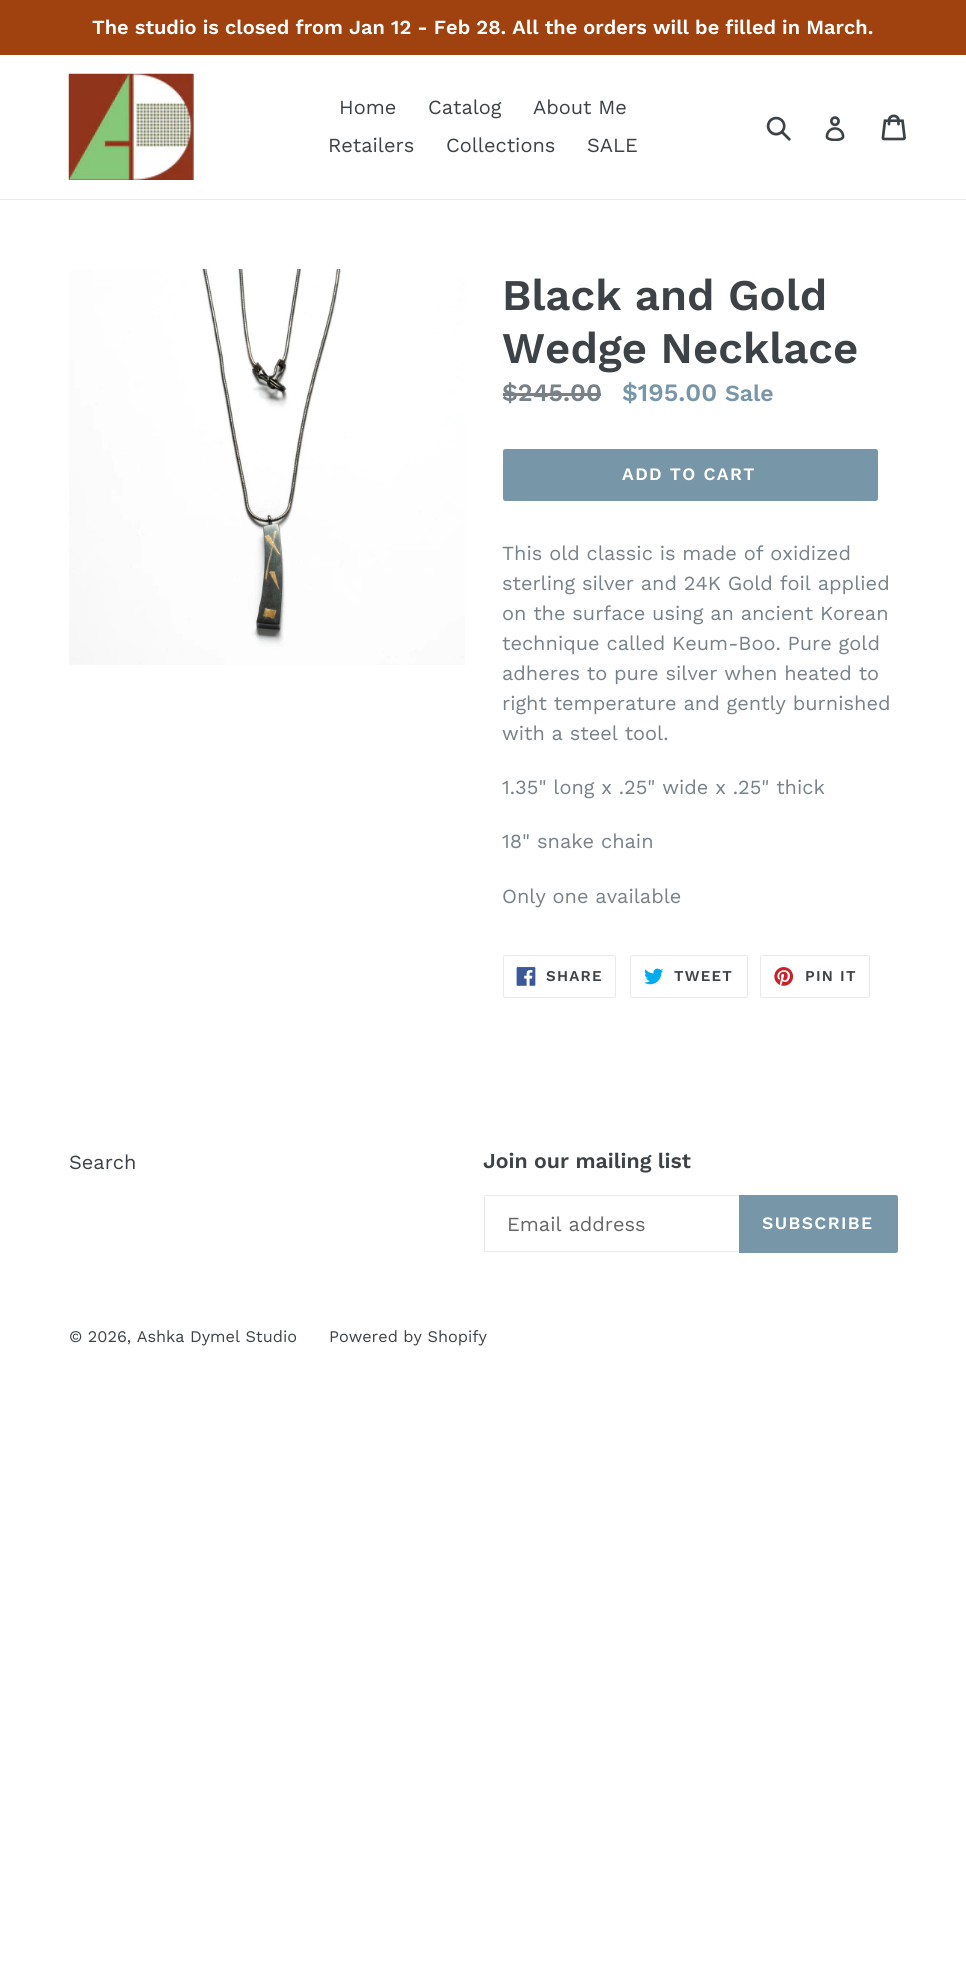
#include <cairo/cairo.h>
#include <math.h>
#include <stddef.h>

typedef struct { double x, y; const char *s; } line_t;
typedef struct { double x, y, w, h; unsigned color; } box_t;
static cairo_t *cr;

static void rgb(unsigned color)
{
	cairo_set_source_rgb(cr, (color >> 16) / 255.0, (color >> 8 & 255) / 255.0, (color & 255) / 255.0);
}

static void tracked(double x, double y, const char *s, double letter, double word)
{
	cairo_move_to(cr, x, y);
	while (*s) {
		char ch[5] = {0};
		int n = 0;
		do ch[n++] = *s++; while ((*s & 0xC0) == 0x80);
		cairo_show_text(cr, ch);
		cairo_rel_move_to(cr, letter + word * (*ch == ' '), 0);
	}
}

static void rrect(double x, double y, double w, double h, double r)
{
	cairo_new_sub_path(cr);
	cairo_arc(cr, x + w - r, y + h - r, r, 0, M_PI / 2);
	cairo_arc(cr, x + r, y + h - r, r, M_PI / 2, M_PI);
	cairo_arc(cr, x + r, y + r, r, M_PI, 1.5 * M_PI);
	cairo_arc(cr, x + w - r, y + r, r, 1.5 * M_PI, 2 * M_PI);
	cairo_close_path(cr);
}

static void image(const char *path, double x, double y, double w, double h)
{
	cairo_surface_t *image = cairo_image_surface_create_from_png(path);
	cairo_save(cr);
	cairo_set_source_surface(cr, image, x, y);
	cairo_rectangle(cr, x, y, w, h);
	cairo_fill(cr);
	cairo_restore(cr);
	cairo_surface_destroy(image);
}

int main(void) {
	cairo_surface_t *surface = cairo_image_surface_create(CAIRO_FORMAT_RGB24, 966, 1985);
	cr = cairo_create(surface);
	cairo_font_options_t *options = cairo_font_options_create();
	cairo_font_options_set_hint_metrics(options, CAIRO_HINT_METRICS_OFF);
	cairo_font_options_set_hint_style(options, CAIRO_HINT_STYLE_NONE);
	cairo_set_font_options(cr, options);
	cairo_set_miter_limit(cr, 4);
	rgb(0xffffff);
	cairo_paint(cr);
	rgb(0x9f4210);
	cairo_rectangle(cr, 0, 0, 966, 55);
	cairo_fill(cr);
	rgb(0xe8e9eb);
	cairo_rectangle(cr, 0, 199, 966, 1);
	cairo_fill(cr);
	image("img/1.png", 68, 73, 126, 107);
	image("img/2.png", 766, 116, 25, 25);
	image("img/3.png", 825, 116, 20, 25);
	image("img/4.png", 881, 114, 25, 27);
	image("img/5.png", 69, 269, 396, 396);
	rgb(0x788188);
	cairo_rectangle(cr, 503, 393, 98, 3);
	cairo_fill(cr);
	rgb(0x7796a8);
	rrect(503, 449, 375, 52, 2.5);
	cairo_fill(cr);
	rrect(503.5, 955.5, 112, 42, 2);
	rgb(0xe8e9eb);
	cairo_set_line_width(cr, 1);
	cairo_stroke(cr);
	image("img/6.png", 516, 967, 20, 19);
	rrect(630.5, 955.5, 117, 42, 2);
	cairo_stroke(cr);
	image("img/7.png", 644, 968, 20, 17);
	rrect(760.5, 955.5, 109, 42, 2);
	cairo_stroke(cr);
	image("img/8.png", 774, 967, 20, 19);
	{
		static const box_t items[] = {
			{485, 1195, 254, 1, 0xe8e9eb},
			{485, 1251, 254, 1, 0xe8e9eb},
			{484, 1196, 1, 55, 0xe8e9eb},
		};
		for (size_t i = 0; i < sizeof items / sizeof *items; i++) {
			rgb(items[i].color);
			cairo_rectangle(cr, items[i].x, items[i].y, items[i].w, items[i].h);
			cairo_fill(cr);
		}
	}
	rgb(0x7796a8);
	cairo_new_path(cr);
	cairo_move_to(cr, 739, 1195);
	cairo_line_to(cr, 895.5, 1195);
	cairo_curve_to(cr, 897, 1195, 898, 1196, 898, 1197.5);
	cairo_line_to(cr, 898, 1250.5);
	cairo_curve_to(cr, 898, 1252, 897, 1253, 895.5, 1253);
	cairo_line_to(cr, 739, 1253);
	cairo_close_path(cr);
	cairo_fill(cr);
	cairo_select_font_face(cr, "Work Sans SemiBold", CAIRO_FONT_SLANT_NORMAL, CAIRO_FONT_WEIGHT_NORMAL);
	cairo_set_font_size(cr, 20);
	rgb(0xffffff);
	cairo_move_to(cr, 92, 34);
	cairo_show_text(cr, "The studio is closed from Jan 12 - Feb 28. All the orders will be filled in March.");
	cairo_select_font_face(cr, "Work Sans", CAIRO_FONT_SLANT_NORMAL, CAIRO_FONT_WEIGHT_NORMAL);
	rgb(0x3d4246);
	{
		static const line_t items[] = {
			{339, 114, "Home"},
			{428, 114, "Catalog"},
			{533, 114, "About Me"},
			{328, 152, "Retailers"},
			{446, 152, "Collections"},
			{587, 152, "SALE"},
		};
		for (size_t i = 0; i < sizeof items / sizeof *items; i++) {
			cairo_move_to(cr, items[i].x, items[i].y);
			cairo_show_text(cr, items[i].s);
		}
	}
	cairo_select_font_face(cr, "Work Sans SemiBold", CAIRO_FONT_SLANT_NORMAL, CAIRO_FONT_WEIGHT_NORMAL);
	cairo_set_font_size(cr, 43.75);
	cairo_move_to(cr, 502, 310);
	cairo_show_text(cr, "Black and Gold");
	cairo_move_to(cr, 502, 363);
	cairo_show_text(cr, "Wedge Necklace");
	cairo_set_font_size(cr, 25);
	rgb(0x788188);
	cairo_move_to(cr, 502, 401);
	cairo_show_text(cr, "$245.00");
	rgb(0x7796a8);
	cairo_move_to(cr, 622, 401);
	cairo_show_text(cr, "$195.00");
	cairo_set_font_size(cr, 23);
	cairo_move_to(cr, 725, 401);
	cairo_show_text(cr, "Sale");
	cairo_set_font_size(cr, 17.5);
	rgb(0xffffff);
	tracked(622, 480, "ADD TO CART", 1.4, 0);
	cairo_select_font_face(cr, "Work Sans", CAIRO_FONT_SLANT_NORMAL, CAIRO_FONT_WEIGHT_NORMAL);
	cairo_set_font_size(cr, 20);
	rgb(0x788188);
	{
		static const line_t items[] = {
			{502, 560, "This old classic is made of oxidized"},
			{502, 590, "sterling silver and 24K Gold foil applied"},
			{502, 620, "on the surface using an ancient Korean"},
			{502, 650, "technique called Keum-Boo. Pure gold"},
			{502, 680, "adheres to pure silver when heated to"},
			{502, 710, "right temperature and gently burnished"},
			{502, 740, "with a steel tool."},
			{502, 794, "1.35\" long x .25\" wide x .25\" thick"},
			{502, 848, "18\" snake chain"},
			{502, 903, "Only one available"},
		};
		for (size_t i = 0; i < sizeof items / sizeof *items; i++) {
			cairo_move_to(cr, items[i].x, items[i].y);
			cairo_show_text(cr, items[i].s);
		}
	}
	cairo_select_font_face(cr, "Work Sans SemiBold", CAIRO_FONT_SLANT_NORMAL, CAIRO_FONT_WEIGHT_NORMAL);
	cairo_set_font_size(cr, 15);
	rgb(0x3d4246);
	{
		static const line_t items[] = {
			{546, 981, "SHARE"},
			{674, 981, "TWEET"},
			{805, 981, "PIN IT"},
		};
		for (size_t i = 0; i < sizeof items / sizeof *items; i++) {
			tracked(items[i].x, items[i].y, items[i].s, 1.25, 0);
		}
	}
	cairo_select_font_face(cr, "Work Sans", CAIRO_FONT_SLANT_NORMAL, CAIRO_FONT_WEIGHT_NORMAL);
	cairo_set_font_size(cr, 20);
	cairo_move_to(cr, 69, 1169);
	cairo_show_text(cr, "Search");
	cairo_select_font_face(cr, "Work Sans SemiBold", CAIRO_FONT_SLANT_NORMAL, CAIRO_FONT_WEIGHT_NORMAL);
	cairo_set_font_size(cr, 21.25);
	cairo_move_to(cr, 483, 1168);
	cairo_show_text(cr, "Join our mailing list");
	cairo_select_font_face(cr, "Work Sans", CAIRO_FONT_SLANT_NORMAL, CAIRO_FONT_WEIGHT_NORMAL);
	cairo_set_font_size(cr, 20);
	rgb(0x666666);
	cairo_move_to(cr, 507, 1231);
	cairo_show_text(cr, "Email address");
	cairo_select_font_face(cr, "Work Sans SemiBold", CAIRO_FONT_SLANT_NORMAL, CAIRO_FONT_WEIGHT_NORMAL);
	cairo_set_font_size(cr, 17.5);
	rgb(0xffffff);
	tracked(762, 1229, "SUBSCRIBE", 1.4, 0);
	cairo_select_font_face(cr, "Work Sans", CAIRO_FONT_SLANT_NORMAL, CAIRO_FONT_WEIGHT_NORMAL);
	cairo_set_font_size(cr, 16.25);
	rgb(0x3d4246);
	cairo_move_to(cr, 69, 1342);
	cairo_show_text(cr, "© 2026, Ashka Dymel Studio");
	cairo_move_to(cr, 329, 1342);
	cairo_show_text(cr, "Powered by Shopify");
	cairo_surface_write_to_png(surface, "page.png");
	cairo_font_options_destroy(options);
	cairo_destroy(cr);
	cairo_surface_destroy(surface);
	return 0;
}
